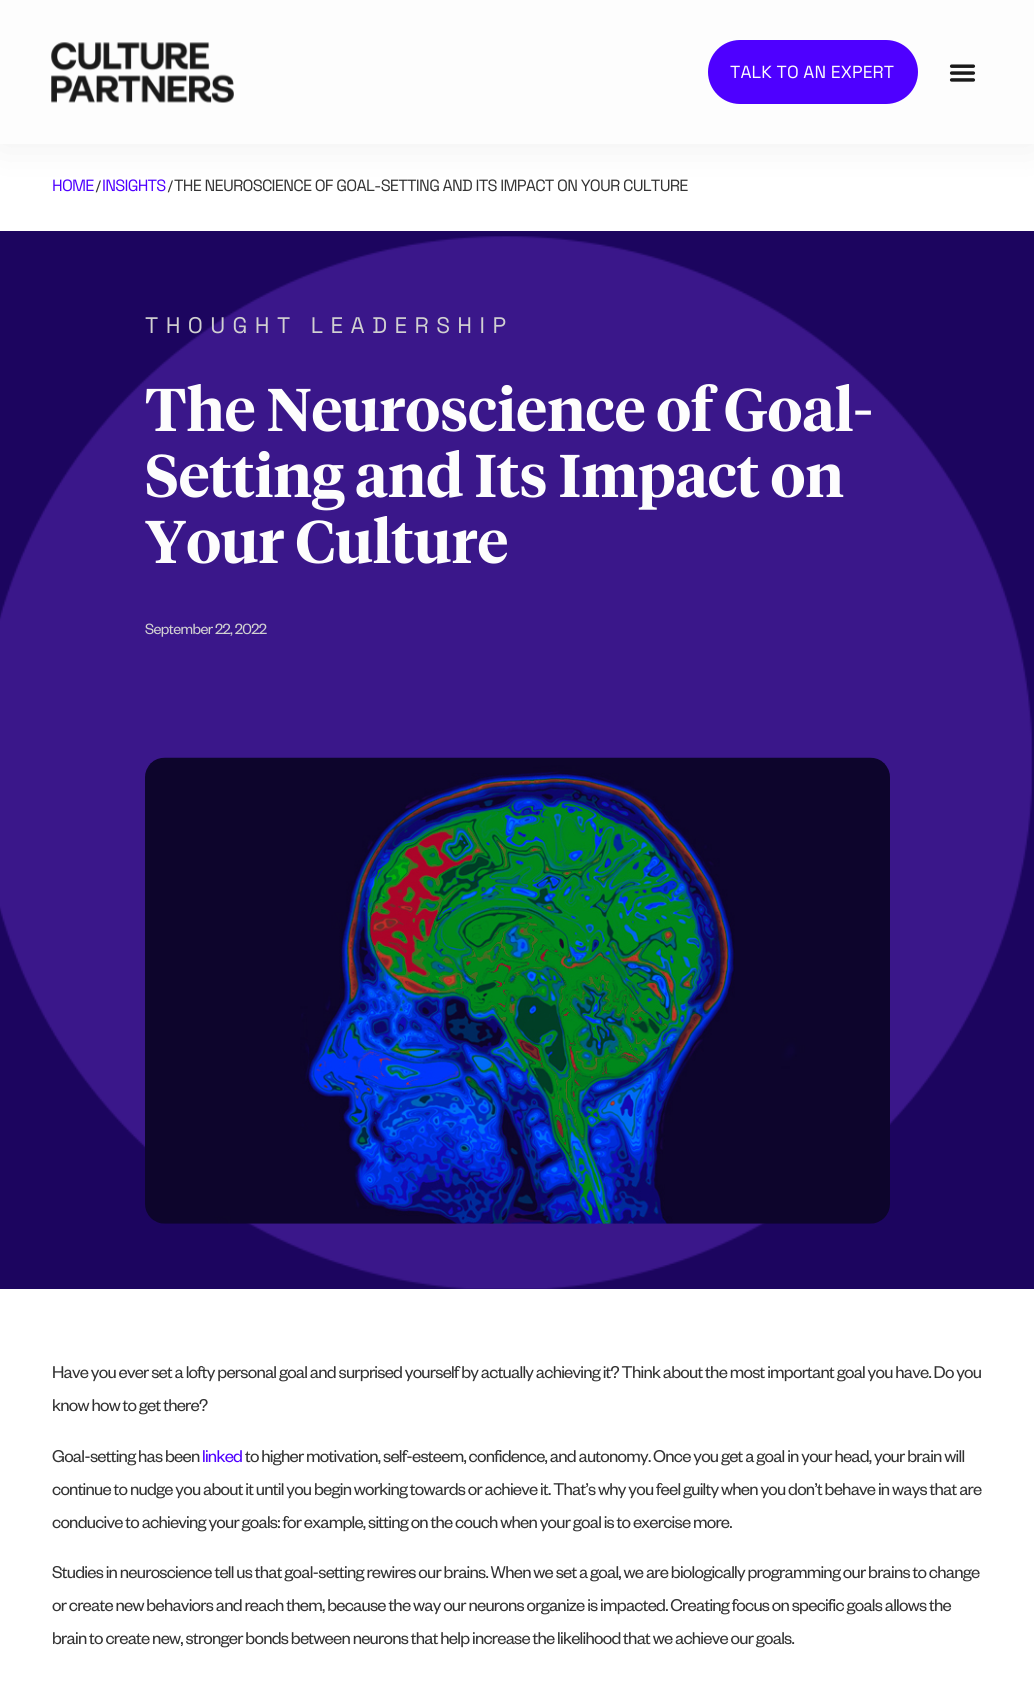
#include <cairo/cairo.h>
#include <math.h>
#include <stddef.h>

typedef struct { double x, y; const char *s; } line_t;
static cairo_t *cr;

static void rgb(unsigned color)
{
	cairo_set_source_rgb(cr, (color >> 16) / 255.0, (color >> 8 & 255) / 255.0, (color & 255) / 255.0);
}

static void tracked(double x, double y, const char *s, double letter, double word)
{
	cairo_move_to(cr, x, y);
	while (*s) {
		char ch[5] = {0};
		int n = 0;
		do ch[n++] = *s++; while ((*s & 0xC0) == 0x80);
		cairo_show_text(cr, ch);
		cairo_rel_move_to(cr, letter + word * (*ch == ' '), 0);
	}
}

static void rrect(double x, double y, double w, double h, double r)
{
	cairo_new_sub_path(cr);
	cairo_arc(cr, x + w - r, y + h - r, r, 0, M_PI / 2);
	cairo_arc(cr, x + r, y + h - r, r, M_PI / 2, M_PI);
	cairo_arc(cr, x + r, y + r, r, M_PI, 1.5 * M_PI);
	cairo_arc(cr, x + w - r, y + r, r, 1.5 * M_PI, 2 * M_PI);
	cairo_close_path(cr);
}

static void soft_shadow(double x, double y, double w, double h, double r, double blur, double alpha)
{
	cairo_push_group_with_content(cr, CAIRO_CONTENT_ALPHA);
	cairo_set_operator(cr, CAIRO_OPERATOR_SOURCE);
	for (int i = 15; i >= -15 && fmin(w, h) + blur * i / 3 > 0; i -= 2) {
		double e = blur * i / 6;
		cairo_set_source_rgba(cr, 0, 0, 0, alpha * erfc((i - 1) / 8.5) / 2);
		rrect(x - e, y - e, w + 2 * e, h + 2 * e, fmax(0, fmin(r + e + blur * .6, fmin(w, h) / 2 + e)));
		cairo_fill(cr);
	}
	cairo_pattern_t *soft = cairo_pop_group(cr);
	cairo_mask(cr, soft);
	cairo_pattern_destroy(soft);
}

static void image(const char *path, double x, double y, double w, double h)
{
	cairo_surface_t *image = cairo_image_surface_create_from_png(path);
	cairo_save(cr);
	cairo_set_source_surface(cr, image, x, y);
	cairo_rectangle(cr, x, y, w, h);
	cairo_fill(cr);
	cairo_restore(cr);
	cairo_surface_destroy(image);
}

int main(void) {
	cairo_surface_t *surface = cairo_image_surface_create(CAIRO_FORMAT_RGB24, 1034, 1687);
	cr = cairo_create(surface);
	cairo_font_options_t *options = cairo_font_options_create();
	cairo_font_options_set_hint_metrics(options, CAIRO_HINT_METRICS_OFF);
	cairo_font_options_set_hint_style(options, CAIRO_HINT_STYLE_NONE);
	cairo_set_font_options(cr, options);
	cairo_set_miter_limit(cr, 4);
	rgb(0xffffff);
	cairo_paint(cr);
	rgb(0x000000);
	soft_shadow(0, 0, 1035, 144, 0, 22, 0.07);
	rgb(0xfdfdfd);
	cairo_rectangle(cr, 0, 0, 1034, 144);
	cairo_fill(cr);
	image("img/1.png", 51, 42, 183, 61);
	rgb(0x4e00ff);
	rrect(709.5, 41.5, 207, 61, 30.5);
	cairo_fill_preserve(cr);
	cairo_set_line_width(cr, 3);
	cairo_stroke(cr);
	image("img/2.png", 949, 64, 27, 18);
	rgb(0x1c055f);
	cairo_rectangle(cr, 0, 231, 1034, 1058);
	cairo_fill(cr);
	image("img/3.png", 0, 236, 1034, 1053);
	image("img/4.png", 145, 757, 745, 467);
	cairo_select_font_face(cr, "Space Grotesk", CAIRO_FONT_SLANT_NORMAL, CAIRO_FONT_WEIGHT_NORMAL);
	cairo_set_font_size(cr, 17.5);
	rgb(0xfdfdfd);
	tracked(730, 78, "TALK TO AN EXPERT", 0.1, 0);
	cairo_set_font_size(cr, 16.25);
	rgb(0x4f00ff);
	tracked(52, 191, "HOME", -0.75, 0);
	cairo_select_font_face(cr, "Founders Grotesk", CAIRO_FONT_SLANT_NORMAL, CAIRO_FONT_WEIGHT_NORMAL);
	cairo_set_font_size(cr, 16);
	rgb(0x333333);
	tracked(96, 191, "/", -0.75, 0);
	cairo_select_font_face(cr, "Space Grotesk", CAIRO_FONT_SLANT_NORMAL, CAIRO_FONT_WEIGHT_NORMAL);
	cairo_set_font_size(cr, 16.25);
	rgb(0x4f00ff);
	tracked(102, 191, "INSIGHTS", -0.75, 0);
	cairo_select_font_face(cr, "Founders Grotesk", CAIRO_FONT_SLANT_NORMAL, CAIRO_FONT_WEIGHT_NORMAL);
	cairo_set_font_size(cr, 16);
	rgb(0x333333);
	tracked(168, 191, "/", -0.75, 0);
	cairo_select_font_face(cr, "Space Grotesk", CAIRO_FONT_SLANT_NORMAL, CAIRO_FONT_WEIGHT_NORMAL);
	cairo_set_font_size(cr, 16.25);
	tracked(174, 191, "THE NEUROSCIENCE OF GOAL-SETTING AND ITS IMPACT ON YOUR CULTURE", -0.75, 0);
	cairo_set_font_size(cr, 22.5);
	rgb(0xd1d1d1);
	tracked(145, 333, "THOUGHT LEADERSHIP", 7.4, 0);
	cairo_select_font_face(cr, "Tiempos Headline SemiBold", CAIRO_FONT_SLANT_NORMAL, CAIRO_FONT_WEIGHT_NORMAL);
	cairo_set_font_size(cr, 60);
	rgb(0xfdfdfd);
	{
		static const line_t items[] = {
			{145, 431, "The Neuroscience of Goal-"},
			{145, 497, "Setting and Its Impact on"},
			{145, 563, "Your Culture"},
		};
		for (size_t i = 0; i < sizeof items / sizeof *items; i++) {
			cairo_move_to(cr, items[i].x, items[i].y);
			cairo_show_text(cr, items[i].s);
		}
	}
	cairo_select_font_face(cr, "Founders Grotesk", CAIRO_FONT_SLANT_NORMAL, CAIRO_FONT_WEIGHT_NORMAL);
	cairo_set_font_size(cr, 16.25);
	rgb(0xd1d1d1);
	tracked(145, 634, "September 22, 2022", -0.6, 0);
	cairo_set_font_size(cr, 18.75);
	rgb(0x333333);
	{
		static const line_t items[] = {
			{52, 1378, "Have you ever set a lofty personal goal and surprised yourself by actually achieving it? Think about the most important goal you have. Do you"},
			{52, 1411, "know how to get there?"},
			{52, 1462, "Goal-setting has been"},
		};
		for (size_t i = 0; i < sizeof items / sizeof *items; i++) {
			tracked(items[i].x, items[i].y, items[i].s, -0.75, 0);
		}
	}
	rgb(0x4f00ff);
	tracked(202, 1462, "linked", -0.75, 0);
	rgb(0x333333);
	{
		static const line_t items[] = {
			{245, 1462, "to higher motivation, self-esteem, confidence, and autonomy. Once you get a goal in your head, your brain will"},
			{52, 1495, "continue to nudge you about it until you begin working towards or achieve it. That’s why you feel guilty when you don’t behave in ways that are"},
			{52, 1528, "conducive to achieving your goals: for example, sitting on the couch when your goal is to exercise more."},
			{52, 1578, "Studies in neuroscience tell us that goal-setting rewires our brains. When we set a goal, we are biologically programming our brains to change"},
			{52, 1611, "or create new behaviors and reach them, because the way our neurons organize is impacted. Creating focus on specific goals allows the"},
			{52, 1644, "brain to create new, stronger bonds between neurons that help increase the likelihood that we achieve our goals."},
		};
		for (size_t i = 0; i < sizeof items / sizeof *items; i++) {
			tracked(items[i].x, items[i].y, items[i].s, -0.75, 0);
		}
	}
	cairo_surface_write_to_png(surface, "page.png");
	cairo_font_options_destroy(options);
	cairo_destroy(cr);
	cairo_surface_destroy(surface);
	return 0;
}
